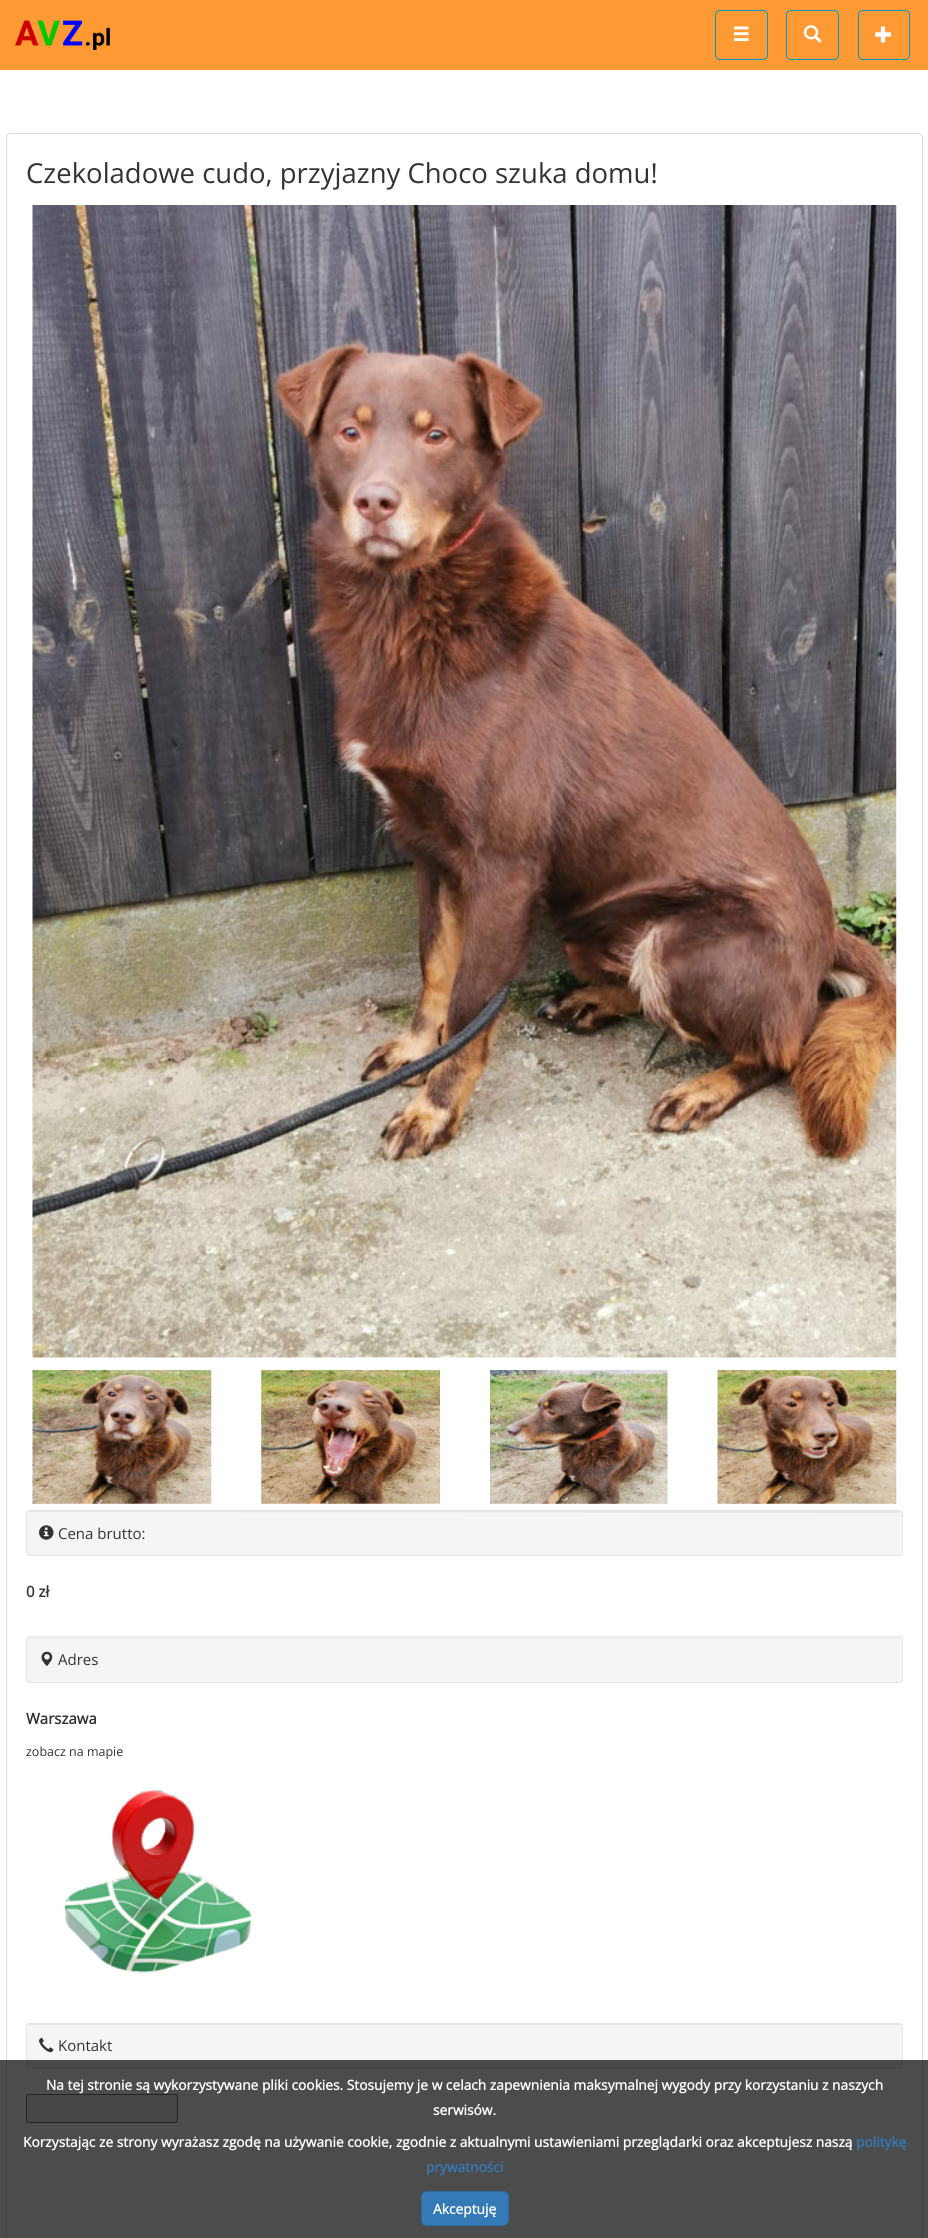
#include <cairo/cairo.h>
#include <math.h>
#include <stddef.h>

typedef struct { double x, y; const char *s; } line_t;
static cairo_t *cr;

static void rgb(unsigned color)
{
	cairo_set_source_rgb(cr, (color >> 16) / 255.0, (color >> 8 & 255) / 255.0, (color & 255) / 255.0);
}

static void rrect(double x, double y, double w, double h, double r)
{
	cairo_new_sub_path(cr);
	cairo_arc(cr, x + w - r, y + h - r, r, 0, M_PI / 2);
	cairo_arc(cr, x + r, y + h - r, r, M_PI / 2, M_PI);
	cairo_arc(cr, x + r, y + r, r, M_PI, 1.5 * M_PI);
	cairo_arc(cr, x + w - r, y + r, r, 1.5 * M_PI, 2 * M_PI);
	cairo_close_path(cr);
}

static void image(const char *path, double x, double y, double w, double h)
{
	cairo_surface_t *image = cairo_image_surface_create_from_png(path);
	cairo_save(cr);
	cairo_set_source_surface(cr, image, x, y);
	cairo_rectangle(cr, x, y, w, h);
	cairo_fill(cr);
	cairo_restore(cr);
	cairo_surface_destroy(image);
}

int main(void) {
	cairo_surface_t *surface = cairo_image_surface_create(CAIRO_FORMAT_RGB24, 928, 2238);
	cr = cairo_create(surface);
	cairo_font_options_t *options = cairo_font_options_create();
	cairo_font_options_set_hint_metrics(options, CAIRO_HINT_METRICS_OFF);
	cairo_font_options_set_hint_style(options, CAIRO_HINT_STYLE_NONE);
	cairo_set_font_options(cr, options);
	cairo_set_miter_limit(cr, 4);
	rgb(0xffffff);
	cairo_paint(cr);
	rgb(0xff9933);
	cairo_rectangle(cr, 0, 0, 928, 70);
	cairo_fill(cr);
	image("img/1.png", 14, 20, 96, 30);
	rrect(715.5, 10.5, 52, 49, 4.5);
	rgb(0x0099cc);
	cairo_set_line_width(cr, 1);
	cairo_stroke(cr);
	image("img/2.png", 733, 26, 16, 16);
	rrect(786.5, 10.5, 52, 49, 4.5);
	cairo_stroke(cr);
	image("img/3.png", 803, 25, 19, 18);
	rrect(858.5, 10.5, 51, 49, 4.5);
	cairo_stroke(cr);
	image("img/4.png", 875, 26, 17, 17);
	rrect(6.5, 133.5, 916, 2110, 4.5);
	rgb(0xdddddd);
	cairo_stroke(cr);
	image("img/5.png", 32, 205, 865, 1153);
	image("img/6.png", 32, 1370, 180, 134);
	image("img/7.png", 261, 1370, 179, 134);
	image("img/8.png", 490, 1370, 178, 134);
	image("img/9.png", 717, 1370, 180, 134);
	rgb(0xf5f5f5);
	rrect(26, 1510, 877, 46, 4);
	cairo_fill(cr);
	rgb(0xe9e9e9);
	cairo_new_path(cr);
	cairo_move_to(cr, 30, 1512);
	cairo_line_to(cr, 900, 1513);
	cairo_line_to(cr, 901, 1514);
	cairo_curve_to(cr, 901, 1512, 900, 1511, 898, 1511);
	cairo_line_to(cr, 30, 1511);
	cairo_curve_to(cr, 29, 1511, 28, 1512, 28, 1513);
	cairo_close_path(cr);
	cairo_fill(cr);
	rrect(26.5, 1510.5, 876, 45, 3.5);
	rgb(0xe3e3e3);
	cairo_stroke(cr);
	image("img/10.png", 39, 1525, 15, 15);
	rgb(0xf5f5f5);
	rrect(26, 1636, 877, 47, 4);
	cairo_fill(cr);
	rgb(0xe9e9e9);
	cairo_new_path(cr);
	cairo_move_to(cr, 30, 1638);
	cairo_line_to(cr, 28, 1639);
	cairo_line_to(cr, 900, 1639);
	cairo_line_to(cr, 901, 1641);
	cairo_curve_to(cr, 901, 1639, 900, 1638, 898, 1638);
	cairo_close_path(cr);
	cairo_fill(cr);
	rrect(26.5, 1636.5, 876, 46, 3.5);
	rgb(0xe3e3e3);
	cairo_stroke(cr);
	image("img/11.png", 41, 1651, 12, 16);
	image("img/12.png", 64, 1790, 188, 183);
	rgb(0xf5f5f5);
	rrect(26, 2023, 877, 46, 4);
	cairo_fill(cr);
	rgb(0xe9e9e9);
	cairo_new_path(cr);
	cairo_move_to(cr, 30, 2025);
	cairo_line_to(cr, 900, 2025);
	cairo_line_to(cr, 901, 2027);
	cairo_line_to(cr, 901, 2026);
	cairo_curve_to(cr, 901, 2025, 900, 2024, 898, 2024);
	cairo_line_to(cr, 30, 2024);
	cairo_curve_to(cr, 29, 2024, 28, 2025, 28, 2026);
	cairo_close_path(cr);
	cairo_fill(cr);
	rrect(26.5, 2023.5, 876, 45, 3.5);
	rgb(0xe3e3e3);
	cairo_stroke(cr);
	image("img/13.png", 39, 2037, 15, 16);
	rgb(0xefefef);
	rrect(26.5, 2094.5, 151, 28, 2);
	cairo_fill_preserve(cr);
	rgb(0x767676);
	cairo_stroke(cr);
	cairo_set_source_rgba(cr, 0, 0, 0, 0.7);
	cairo_rectangle(cr, 0, 2060, 928, 178);
	cairo_fill(cr);
	rgb(0x337ab7);
	rrect(421.5, 2191.5, 87, 34, 5.5);
	cairo_fill_preserve(cr);
	rgb(0x2e6da4);
	cairo_stroke(cr);
	cairo_select_font_face(cr, "Open Sans", CAIRO_FONT_SLANT_NORMAL, CAIRO_FONT_WEIGHT_NORMAL);
	cairo_set_font_size(cr, 27.5);
	rgb(0x333333);
	cairo_move_to(cr, 26, 183);
	cairo_show_text(cr, "Czekoladowe cudo, przyjazny Choco szuka domu!");
	cairo_set_font_size(cr, 15);
	cairo_move_to(cr, 58, 1539);
	cairo_show_text(cr, "Cena brutto:");
	cairo_select_font_face(cr, "Open Sans", CAIRO_FONT_SLANT_NORMAL, CAIRO_FONT_WEIGHT_BOLD);
	cairo_move_to(cr, 26, 1597);
	cairo_show_text(cr, "0 zł");
	cairo_select_font_face(cr, "Open Sans", CAIRO_FONT_SLANT_NORMAL, CAIRO_FONT_WEIGHT_NORMAL);
	cairo_move_to(cr, 58, 1665);
	cairo_show_text(cr, "Adres");
	cairo_select_font_face(cr, "Open Sans", CAIRO_FONT_SLANT_NORMAL, CAIRO_FONT_WEIGHT_BOLD);
	cairo_move_to(cr, 26, 1724);
	cairo_show_text(cr, "Warszawa");
	cairo_select_font_face(cr, "Open Sans", CAIRO_FONT_SLANT_NORMAL, CAIRO_FONT_WEIGHT_NORMAL);
	cairo_set_font_size(cr, 12.5);
	cairo_move_to(cr, 26, 1756);
	cairo_show_text(cr, "zobacz na mapie");
	cairo_set_font_size(cr, 15);
	cairo_move_to(cr, 58, 2051);
	cairo_show_text(cr, "Kontakt");
	cairo_select_font_face(cr, "Open Sans", CAIRO_FONT_SLANT_NORMAL, CAIRO_FONT_WEIGHT_BOLD);
	cairo_set_font_size(cr, 13.75);
	rgb(0xffffff);
	{
		static const line_t items[] = {
			{46, 2090, "Na tej stronie są wykorzystywane pliki cookies. Stosujemy je w celach zapewnienia maksymalnej wygody przy korzystaniu z naszych"},
			{433, 2115, "serwisów."},
			{23, 2147, "Korzystając ze strony wyrażasz zgodę na używanie cookie, zgodnie z aktualnymi ustawieniami przeglądarki oraz akceptujesz naszą"},
		};
		for (size_t i = 0; i < sizeof items / sizeof *items; i++) {
			cairo_move_to(cr, items[i].x, items[i].y);
			cairo_show_text(cr, items[i].s);
		}
	}
	rgb(0x337ab7);
	cairo_move_to(cr, 856, 2147);
	cairo_show_text(cr, "politykę");
	cairo_move_to(cr, 426, 2172);
	cairo_show_text(cr, "prywatności");
	rgb(0xffffff);
	cairo_move_to(cr, 433, 2214);
	cairo_show_text(cr, "Akceptuję");
	cairo_surface_write_to_png(surface, "page.png");
	cairo_font_options_destroy(options);
	cairo_destroy(cr);
	cairo_surface_destroy(surface);
	return 0;
}
